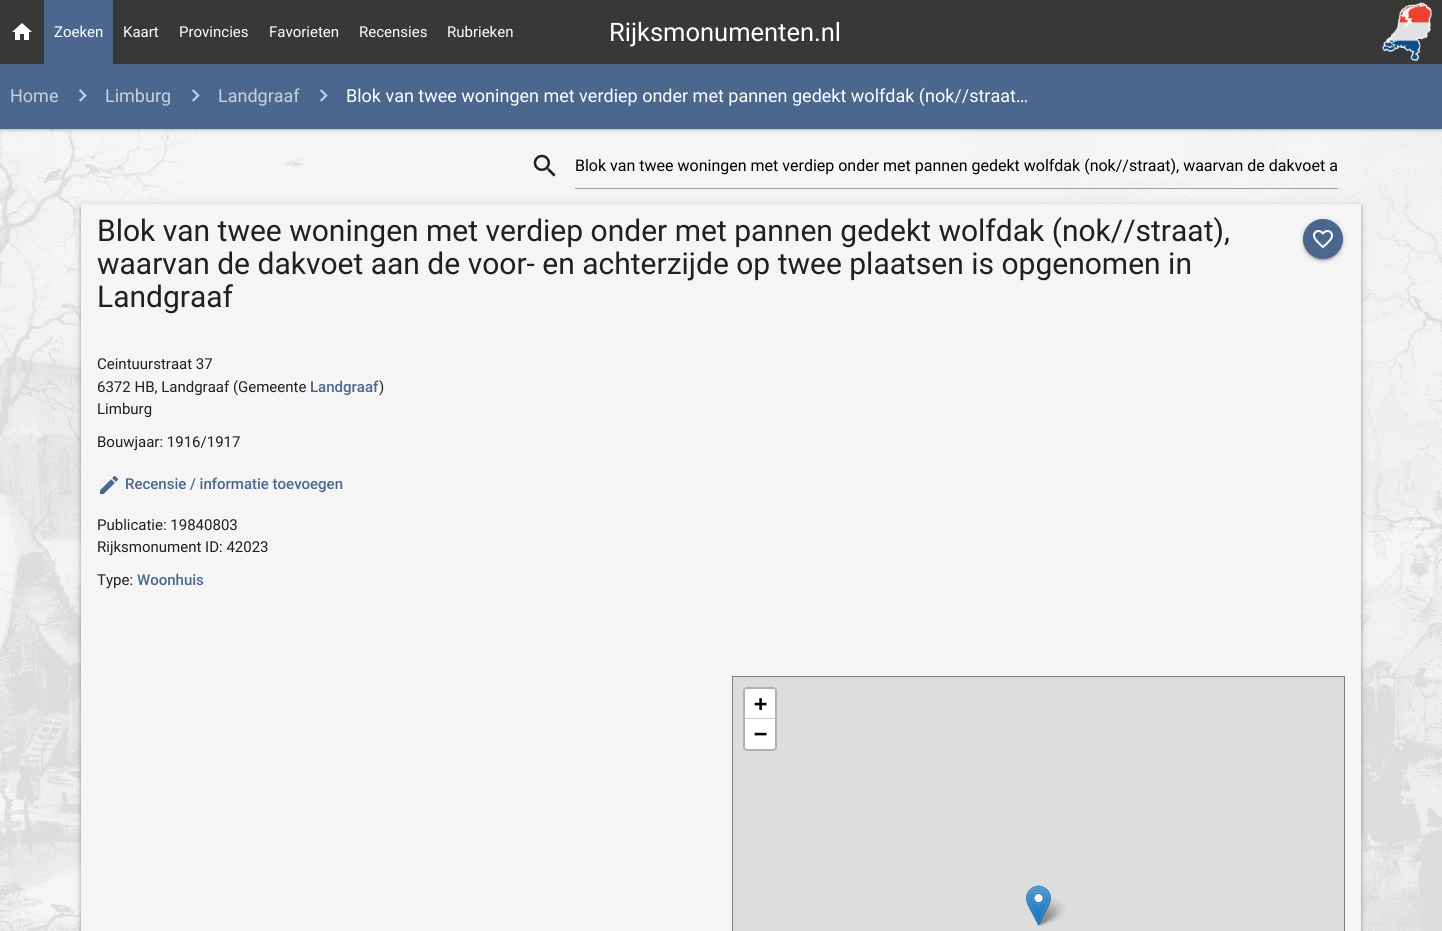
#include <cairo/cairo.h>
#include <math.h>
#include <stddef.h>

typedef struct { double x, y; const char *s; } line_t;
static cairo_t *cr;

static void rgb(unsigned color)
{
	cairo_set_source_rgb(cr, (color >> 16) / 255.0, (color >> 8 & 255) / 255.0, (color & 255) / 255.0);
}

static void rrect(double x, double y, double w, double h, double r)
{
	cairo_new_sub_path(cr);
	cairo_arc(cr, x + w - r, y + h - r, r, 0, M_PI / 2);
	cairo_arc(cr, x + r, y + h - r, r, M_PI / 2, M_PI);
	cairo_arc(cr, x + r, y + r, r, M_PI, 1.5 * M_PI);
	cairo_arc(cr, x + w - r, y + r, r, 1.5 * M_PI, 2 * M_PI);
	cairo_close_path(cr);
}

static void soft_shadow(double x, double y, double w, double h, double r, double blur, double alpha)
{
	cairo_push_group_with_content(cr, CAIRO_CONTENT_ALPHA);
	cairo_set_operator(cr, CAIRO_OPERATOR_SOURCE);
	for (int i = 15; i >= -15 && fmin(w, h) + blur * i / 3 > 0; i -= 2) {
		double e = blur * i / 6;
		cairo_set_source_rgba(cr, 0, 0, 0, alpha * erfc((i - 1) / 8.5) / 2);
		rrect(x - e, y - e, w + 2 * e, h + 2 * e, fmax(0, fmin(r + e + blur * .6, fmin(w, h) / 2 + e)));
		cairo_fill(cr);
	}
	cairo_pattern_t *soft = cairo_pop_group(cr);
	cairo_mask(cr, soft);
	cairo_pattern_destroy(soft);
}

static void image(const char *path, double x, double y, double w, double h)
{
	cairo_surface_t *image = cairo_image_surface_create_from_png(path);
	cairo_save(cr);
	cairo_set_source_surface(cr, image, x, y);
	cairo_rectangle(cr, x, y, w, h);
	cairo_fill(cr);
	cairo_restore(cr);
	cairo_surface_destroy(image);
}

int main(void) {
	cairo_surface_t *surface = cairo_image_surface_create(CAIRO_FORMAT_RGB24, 1442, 931);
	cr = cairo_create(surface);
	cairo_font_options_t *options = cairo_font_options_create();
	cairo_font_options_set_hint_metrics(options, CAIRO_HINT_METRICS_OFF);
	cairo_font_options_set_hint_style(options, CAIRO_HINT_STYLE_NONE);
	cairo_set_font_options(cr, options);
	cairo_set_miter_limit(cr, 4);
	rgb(0xffffff);
	cairo_paint(cr);
	image("img/1.png", 0, 129, 1442, 802);
	rgb(0x000000);
	soft_shadow(0, 65, 1442, 64, 0, 2.5, 0.2);
	soft_shadow(0, 66, 1442, 64, 0, 1, 0.14);
	rgb(0x383838);
	cairo_rectangle(cr, 0, 0, 1442, 64);
	cairo_fill(cr);
	image("img/2.png", 12, 23, 20, 17);
	rgb(0x4c678e);
	cairo_rectangle(cr, 44, 0, 69, 64);
	cairo_fill(cr);
	image("img/3.png", 1382, 2, 50, 60);
	cairo_rectangle(cr, 0, 64, 1442, 65);
	cairo_fill(cr);
	image("img/4.png", 79, 89, 8, 13);
	image("img/4.png", 192, 89, 8, 13);
	image("img/4.png", 320, 89, 8, 13);
	image("img/5.png", 533, 154, 23, 23);
	rgb(0x9e9e9e);
	cairo_rectangle(cr, 575, 188, 763, 1);
	cairo_fill(cr);
	rgb(0x000000);
	soft_shadow(82, 207, 1278, 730, 0, 2, 0.3);
	soft_shadow(81, 205, 1280, 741, 0, 5, 0.12);
	soft_shadow(81, 208, 1280, 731, 0, 2.5, 0.14);
	rgb(0xf5f5f5);
	cairo_rectangle(cr, 81, 204, 1280, 727);
	cairo_fill(cr);
	rgb(0x000000);
	soft_shadow(1303, 220, 40, 40, 20, 2.5, 0.2);
	soft_shadow(1305, 224, 36, 36, 18, 0.5, 0.12);
	soft_shadow(1303, 221, 40, 40, 20, 1, 0.14);
	rgb(0x4c678e);
	cairo_arc(cr, 1323, 239, 20, 0, 2 * M_PI);
	cairo_fill(cr);
	image("img/6.png", 1313, 230, 20, 19);
	image("img/7.png", 100, 476, 18, 18);
	rgb(0xdddddd);
	cairo_rectangle(cr, 732.5, 676.5, 612, 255);
	cairo_fill_preserve(cr);
	rgb(0x808080);
	cairo_set_line_width(cr, 1);
	cairo_stroke(cr);
	rrect(744, 688, 32, 62, 3);
	rgb(0xb1b1b1);
	cairo_set_line_width(cr, 2);
	cairo_stroke(cr);
	rgb(0xffffff);
	cairo_new_path(cr);
	cairo_move_to(cr, 747, 689);
	cairo_line_to(cr, 773, 689);
	cairo_curve_to(cr, 774, 689, 775, 690, 775, 691);
	cairo_line_to(cr, 775, 719);
	cairo_line_to(cr, 745, 719);
	cairo_line_to(cr, 745, 691);
	cairo_curve_to(cr, 745, 690, 746, 689, 747, 689);
	cairo_close_path(cr);
	cairo_fill(cr);
	rgb(0xcccccc);
	cairo_rectangle(cr, 745, 718, 30, 1);
	cairo_fill(cr);
	rgb(0xffffff);
	cairo_new_path(cr);
	cairo_move_to(cr, 745, 719);
	cairo_line_to(cr, 775, 719);
	cairo_line_to(cr, 775, 747);
	cairo_curve_to(cr, 775, 748, 774, 749, 773, 749);
	cairo_line_to(cr, 747, 749);
	cairo_curve_to(cr, 746, 749, 745, 748, 745, 747);
	cairo_close_path(cr);
	cairo_fill(cr);
	image("img/9.png", 1036, 898, 29, 28);
	image("img/8.png", 1026, 885, 25, 41);
	cairo_select_font_face(cr, "Roboto", CAIRO_FONT_SLANT_NORMAL, CAIRO_FONT_WEIGHT_NORMAL);
	cairo_set_font_size(cr, 15);
	{
		static const line_t items[] = {
			{54, 37, "Zoeken"},
			{123, 37, "Kaart"},
			{179, 37, "Provincies"},
			{269, 37, "Favorieten"},
			{359, 37, "Recensies"},
			{447, 37, "Rubrieken"},
		};
		for (size_t i = 0; i < sizeof items / sizeof *items; i++) {
			cairo_move_to(cr, items[i].x, items[i].y);
			cairo_show_text(cr, items[i].s);
		}
	}
	cairo_set_font_size(cr, 25.5);
	cairo_move_to(cr, 609, 41);
	cairo_show_text(cr, "Rijksmonumenten.nl");
	cairo_set_font_size(cr, 18);
	rgb(0xc9d1dd);
	{
		static const line_t items[] = {
			{10, 102, "Home"},
			{105, 102, "Limburg"},
			{218, 102, "Landgraaf"},
		};
		for (size_t i = 0; i < sizeof items / sizeof *items; i++) {
			cairo_move_to(cr, items[i].x, items[i].y);
			cairo_show_text(cr, items[i].s);
		}
	}
	rgb(0xffffff);
	cairo_move_to(cr, 346, 102);
	cairo_show_text(cr, "Blok van twee woningen met verdiep onder met pannen gedekt wolfdak (nok//straat…");
	cairo_set_font_size(cr, 16);
	rgb(0x000000);
	cairo_move_to(cr, 575, 171);
	cairo_show_text(cr, "Blok van twee woningen met verdiep onder met pannen gedekt wolfdak (nok//straat), waarvan de dakvoet a");
	cairo_set_font_size(cr, 30);
	rgb(0x202020);
	{
		static const line_t items[] = {
			{97, 241, "Blok van twee woningen met verdiep onder met pannen gedekt wolfdak (nok//straat),"},
			{97, 274, "waarvan de dakvoet aan de voor- en achterzijde op twee plaatsen is opgenomen in"},
			{97, 307, "Landgraaf"},
		};
		for (size_t i = 0; i < sizeof items / sizeof *items; i++) {
			cairo_move_to(cr, items[i].x, items[i].y);
			cairo_show_text(cr, items[i].s);
		}
	}
	cairo_set_font_size(cr, 15);
	cairo_move_to(cr, 97, 369);
	cairo_show_text(cr, "Ceintuurstraat 37");
	cairo_move_to(cr, 97, 392);
	cairo_show_text(cr, "6372 HB, Landgraaf (Gemeente");
	cairo_select_font_face(cr, "Roboto Medium", CAIRO_FONT_SLANT_NORMAL, CAIRO_FONT_WEIGHT_NORMAL);
	rgb(0x4c678e);
	cairo_move_to(cr, 310, 392);
	cairo_show_text(cr, "Landgraaf");
	cairo_select_font_face(cr, "Roboto", CAIRO_FONT_SLANT_NORMAL, CAIRO_FONT_WEIGHT_NORMAL);
	rgb(0x202020);
	{
		static const line_t items[] = {
			{379, 392, ")"},
			{97, 414, "Limburg"},
			{97, 447, "Bouwjaar: 1916/1917"},
		};
		for (size_t i = 0; i < sizeof items / sizeof *items; i++) {
			cairo_move_to(cr, items[i].x, items[i].y);
			cairo_show_text(cr, items[i].s);
		}
	}
	cairo_select_font_face(cr, "Roboto Medium", CAIRO_FONT_SLANT_NORMAL, CAIRO_FONT_WEIGHT_NORMAL);
	rgb(0x4c678e);
	cairo_move_to(cr, 125, 489);
	cairo_show_text(cr, "Recensie / informatie toevoegen");
	cairo_select_font_face(cr, "Roboto", CAIRO_FONT_SLANT_NORMAL, CAIRO_FONT_WEIGHT_NORMAL);
	rgb(0x202020);
	{
		static const line_t items[] = {
			{97, 530, "Publicatie: 19840803"},
			{97, 552, "Rijksmonument ID: 42023"},
			{97, 585, "Type:"},
		};
		for (size_t i = 0; i < sizeof items / sizeof *items; i++) {
			cairo_move_to(cr, items[i].x, items[i].y);
			cairo_show_text(cr, items[i].s);
		}
	}
	cairo_select_font_face(cr, "Roboto Medium", CAIRO_FONT_SLANT_NORMAL, CAIRO_FONT_WEIGHT_NORMAL);
	rgb(0x4c678e);
	cairo_move_to(cr, 137, 585);
	cairo_show_text(cr, "Woonhuis");
	cairo_select_font_face(cr, "DejaVu Sans Mono", CAIRO_FONT_SLANT_NORMAL, CAIRO_FONT_WEIGHT_BOLD);
	cairo_set_font_size(cr, 22);
	rgb(0x000000);
	cairo_move_to(cr, 754, 711);
	cairo_show_text(cr, "+");
	cairo_move_to(cr, 754, 741);
	cairo_show_text(cr, "−");
	cairo_surface_write_to_png(surface, "page.png");
	cairo_font_options_destroy(options);
	cairo_destroy(cr);
	cairo_surface_destroy(surface);
	return 0;
}
